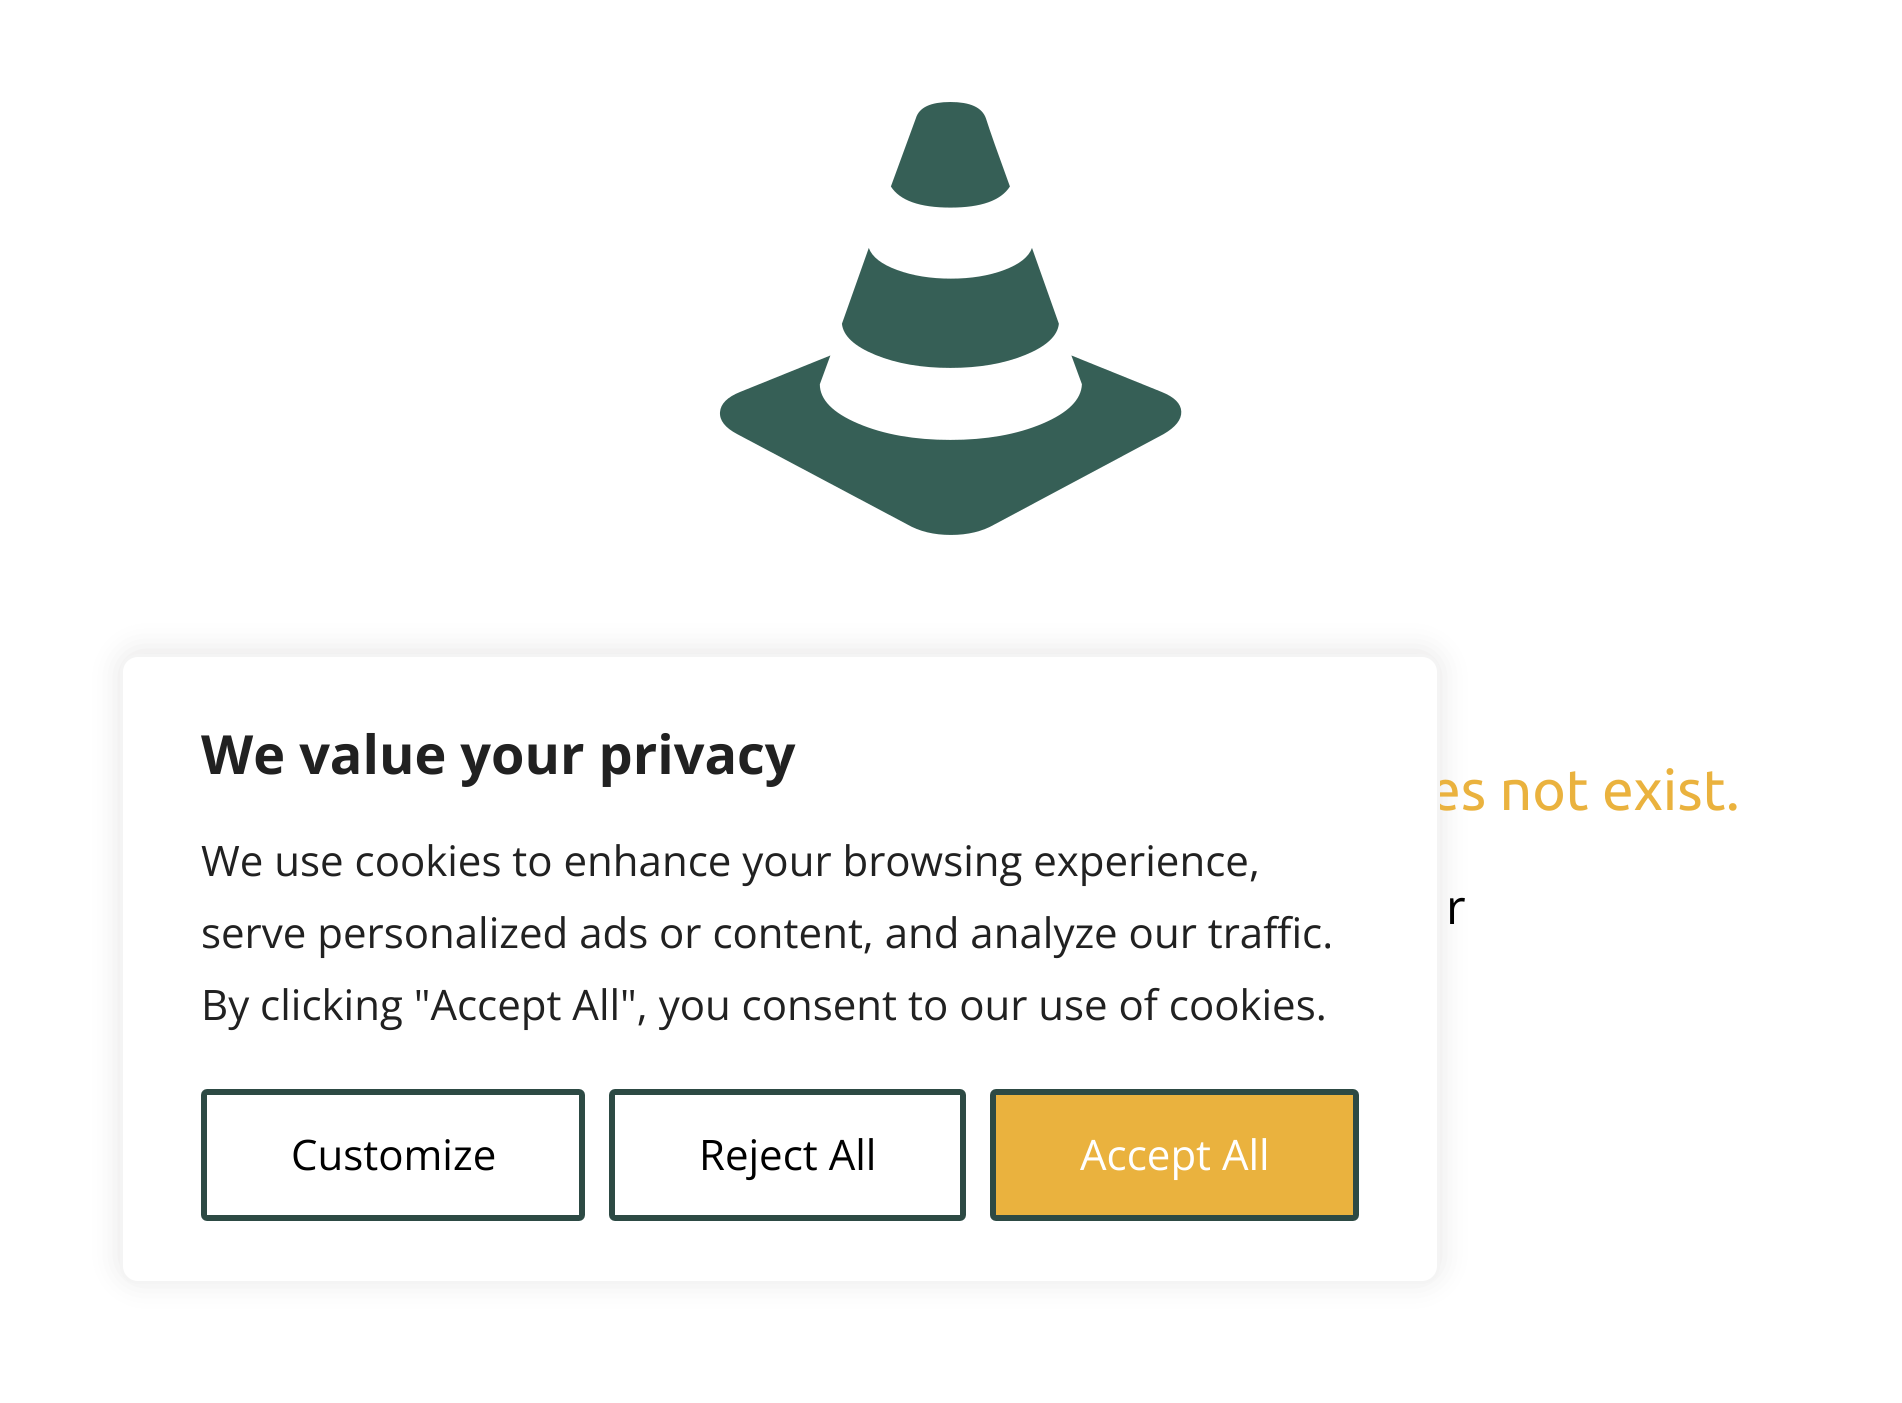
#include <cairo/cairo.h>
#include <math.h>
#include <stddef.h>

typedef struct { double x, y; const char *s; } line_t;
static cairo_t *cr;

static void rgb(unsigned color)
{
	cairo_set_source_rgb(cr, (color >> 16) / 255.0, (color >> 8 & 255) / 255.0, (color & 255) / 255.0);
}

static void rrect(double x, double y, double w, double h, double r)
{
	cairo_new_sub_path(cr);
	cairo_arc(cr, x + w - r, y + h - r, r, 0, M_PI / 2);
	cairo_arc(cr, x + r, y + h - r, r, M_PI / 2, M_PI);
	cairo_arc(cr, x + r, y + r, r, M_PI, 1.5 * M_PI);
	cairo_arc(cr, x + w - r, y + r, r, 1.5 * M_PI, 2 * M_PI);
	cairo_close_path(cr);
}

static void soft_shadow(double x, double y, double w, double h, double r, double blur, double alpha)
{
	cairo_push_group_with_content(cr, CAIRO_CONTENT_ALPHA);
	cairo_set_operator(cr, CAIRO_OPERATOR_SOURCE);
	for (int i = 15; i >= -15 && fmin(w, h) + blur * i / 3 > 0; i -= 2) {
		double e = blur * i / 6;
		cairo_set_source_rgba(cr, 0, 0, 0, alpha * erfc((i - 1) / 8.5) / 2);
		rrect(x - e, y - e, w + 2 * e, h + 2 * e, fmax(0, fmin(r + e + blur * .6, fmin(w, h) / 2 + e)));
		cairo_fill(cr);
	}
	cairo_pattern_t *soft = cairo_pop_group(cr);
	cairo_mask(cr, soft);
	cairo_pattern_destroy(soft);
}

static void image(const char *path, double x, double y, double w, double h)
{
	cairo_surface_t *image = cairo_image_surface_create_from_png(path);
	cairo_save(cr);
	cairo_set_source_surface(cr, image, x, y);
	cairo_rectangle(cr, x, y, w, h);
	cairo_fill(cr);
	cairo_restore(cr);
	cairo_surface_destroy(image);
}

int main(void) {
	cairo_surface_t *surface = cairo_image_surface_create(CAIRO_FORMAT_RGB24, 1902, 1403);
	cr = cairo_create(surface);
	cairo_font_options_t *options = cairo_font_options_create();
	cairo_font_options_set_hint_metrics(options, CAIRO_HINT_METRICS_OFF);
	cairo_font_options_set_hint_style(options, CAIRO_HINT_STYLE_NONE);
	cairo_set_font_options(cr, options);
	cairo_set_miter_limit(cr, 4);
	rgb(0xffffff);
	cairo_paint(cr);
	rgb(0xacabab);
	soft_shadow(120, 651, 1320, 630, 18, 15, 0.3);
	image("img/1.png", 719, 102, 463, 433);
	cairo_select_font_face(cr, "Ubuntu", CAIRO_FONT_SLANT_NORMAL, CAIRO_FONT_WEIGHT_NORMAL);
	cairo_set_font_size(cr, 57);
	rgb(0xeab23e);
	cairo_move_to(cr, 1429, 810);
	cairo_show_text(cr, "es not exist.");
	rgb(0xffffff);
	rrect(121.5, 655.5, 1317, 627, 16.5);
	cairo_fill_preserve(cr);
	rgb(0xf4f4f4);
	cairo_set_line_width(cr, 3);
	cairo_stroke(cr);
	rgb(0xeab23e);
	rrect(993, 1092, 363, 126, 3);
	cairo_fill_preserve(cr);
	rgb(0x2d4a44);
	cairo_set_line_width(cr, 6);
	cairo_stroke(cr);
	cairo_select_font_face(cr, "Open Sans", CAIRO_FONT_SLANT_NORMAL, CAIRO_FONT_WEIGHT_NORMAL);
	cairo_set_font_size(cr, 42);
	rgb(0xffffff);
	cairo_move_to(cr, 1080, 1170);
	cairo_show_text(cr, "Accept All");
	rrect(612, 1092, 351, 126, 3);
	rgb(0x2d4a44);
	cairo_stroke(cr);
	rgb(0x000000);
	cairo_move_to(cr, 699, 1170);
	cairo_show_text(cr, "Reject All");
	rrect(204, 1092, 378, 126, 3);
	rgb(0x2d4a44);
	cairo_stroke(cr);
	rgb(0x000000);
	cairo_move_to(cr, 291, 1170);
	cairo_show_text(cr, "Customize");
	rgb(0x212121);
	{
		static const line_t items[] = {
			{201, 1020, "By clicking \"Accept All\", you consent to our use of cookies."},
			{201, 948, "serve personalized ads or content, and analyze our traffic."},
			{201, 876, "We use cookies to enhance your browsing experience,"},
		};
		for (size_t i = 0; i < sizeof items / sizeof *items; i++) {
			cairo_move_to(cr, items[i].x, items[i].y);
			cairo_show_text(cr, items[i].s);
		}
	}
	cairo_select_font_face(cr, "Open Sans", CAIRO_FONT_SLANT_NORMAL, CAIRO_FONT_WEIGHT_BOLD);
	cairo_set_font_size(cr, 54);
	cairo_move_to(cr, 201, 774);
	cairo_show_text(cr, "We value your privacy");
	cairo_select_font_face(cr, "Open Sans", CAIRO_FONT_SLANT_NORMAL, CAIRO_FONT_WEIGHT_NORMAL);
	cairo_set_font_size(cr, 48);
	rgb(0x000000);
	cairo_move_to(cr, 1446, 924);
	cairo_show_text(cr, "r");
	cairo_surface_write_to_png(surface, "page.png");
	cairo_font_options_destroy(options);
	cairo_destroy(cr);
	cairo_surface_destroy(surface);
	return 0;
}
